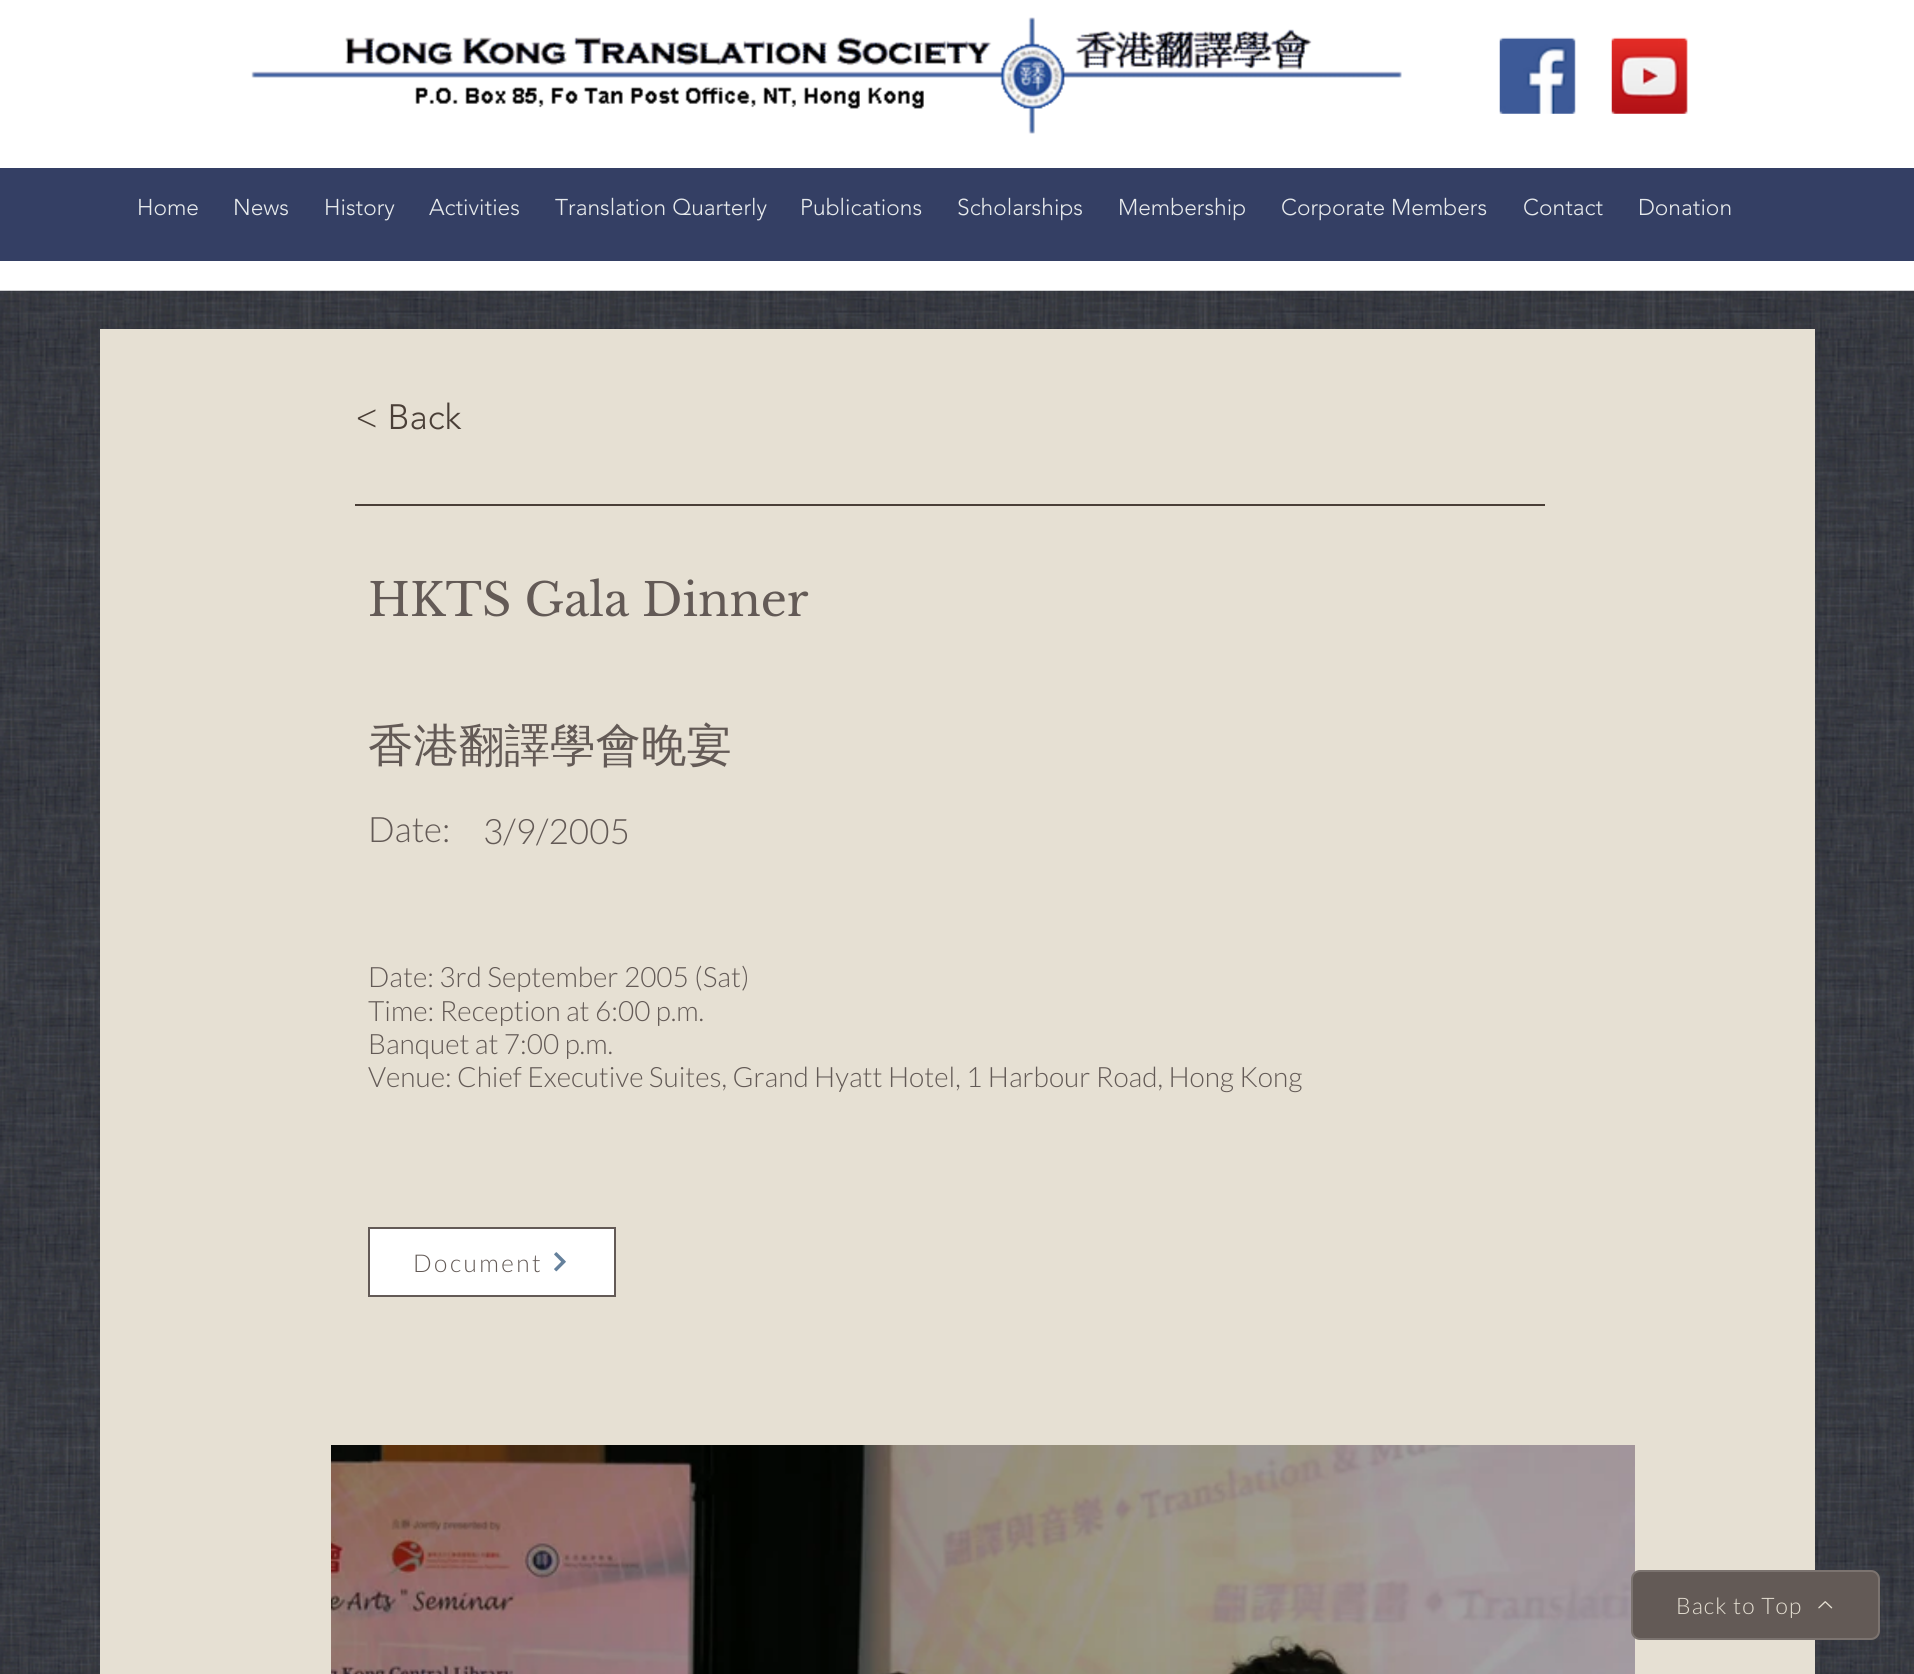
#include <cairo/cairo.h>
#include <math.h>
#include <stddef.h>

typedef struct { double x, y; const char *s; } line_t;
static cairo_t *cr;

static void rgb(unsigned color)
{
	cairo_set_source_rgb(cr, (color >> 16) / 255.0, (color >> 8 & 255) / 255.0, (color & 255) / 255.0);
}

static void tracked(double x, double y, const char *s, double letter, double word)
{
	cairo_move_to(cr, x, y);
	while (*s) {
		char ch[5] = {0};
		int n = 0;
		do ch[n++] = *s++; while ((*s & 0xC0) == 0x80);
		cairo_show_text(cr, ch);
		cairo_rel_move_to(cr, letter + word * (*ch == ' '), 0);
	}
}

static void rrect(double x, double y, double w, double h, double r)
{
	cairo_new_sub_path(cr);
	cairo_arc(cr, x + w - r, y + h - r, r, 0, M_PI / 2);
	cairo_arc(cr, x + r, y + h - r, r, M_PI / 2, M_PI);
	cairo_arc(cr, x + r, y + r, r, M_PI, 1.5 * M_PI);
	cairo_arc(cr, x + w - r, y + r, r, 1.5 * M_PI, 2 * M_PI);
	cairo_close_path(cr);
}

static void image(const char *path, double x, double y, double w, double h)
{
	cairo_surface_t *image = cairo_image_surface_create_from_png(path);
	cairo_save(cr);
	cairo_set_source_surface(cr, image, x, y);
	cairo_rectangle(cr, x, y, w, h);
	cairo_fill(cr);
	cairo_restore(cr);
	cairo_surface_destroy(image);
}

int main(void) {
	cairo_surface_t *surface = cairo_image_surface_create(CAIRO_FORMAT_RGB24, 1914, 1674);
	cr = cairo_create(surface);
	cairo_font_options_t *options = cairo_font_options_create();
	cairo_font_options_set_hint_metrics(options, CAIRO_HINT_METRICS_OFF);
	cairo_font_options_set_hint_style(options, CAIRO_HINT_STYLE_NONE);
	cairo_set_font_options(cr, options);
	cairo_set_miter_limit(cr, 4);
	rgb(0xffffff);
	cairo_paint(cr);
	image("img/1.png", 251, 17, 1151, 117);
	image("img/2.png", 1499, 37, 77, 77);
	image("img/3.png", 1611, 37, 77, 77);
	rgb(0x343f64);
	cairo_rectangle(cr, 0, 168, 1914, 93);
	cairo_fill(cr);
	image("img/4.png", 0, 290, 1914, 1384);
	rgb(0xe6e0d3);
	cairo_rectangle(cr, 100, 329, 1715, 1345);
	cairo_fill(cr);
	rgb(0x4a3f37);
	cairo_rectangle(cr, 355, 504, 1190, 2);
	cairo_fill(cr);
	rgb(0xffffff);
	cairo_rectangle(cr, 369, 1228, 246, 68);
	cairo_fill_preserve(cr);
	rgb(0x635a56);
	cairo_stroke(cr);
	image("img/5.png", 554, 1252, 12, 20);
	image("img/6.png", 331, 1445, 1304, 229);
	rrect(1632, 1571, 247, 68, 8);
	cairo_fill_preserve(cr);
	rgb(0x7b736f);
	cairo_stroke(cr);
	image("img/7.png", 1818, 1601, 15, 8);
	cairo_select_font_face(cr, "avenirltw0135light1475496 Light", CAIRO_FONT_SLANT_NORMAL, CAIRO_FONT_WEIGHT_NORMAL);
	cairo_set_font_size(cr, 22.75);
	rgb(0xe6e9eb);
	{
		static const line_t items[] = {
			{137, 215, "Home"},
			{233, 215, "News"},
			{324, 215, "History"},
			{429, 215, "Activities"},
			{555, 215, "Translation Quarterly"},
			{800, 215, "Publications"},
			{957, 215, "Scholarships"},
			{1118, 215, "Membership"},
			{1281, 215, "Corporate Members"},
			{1523, 215, "Contact"},
			{1638, 215, "Donation"},
		};
		for (size_t i = 0; i < sizeof items / sizeof *items; i++) {
			cairo_move_to(cr, items[i].x, items[i].y);
			cairo_show_text(cr, items[i].s);
		}
	}
	cairo_set_font_size(cr, 35);
	rgb(0x4a3f37);
	cairo_move_to(cr, 355, 429);
	cairo_show_text(cr, "< Back");
	cairo_select_font_face(cr, "Libre Baskerville", CAIRO_FONT_SLANT_NORMAL, CAIRO_FONT_WEIGHT_NORMAL);
	cairo_set_font_size(cr, 45.5);
	rgb(0x635a56);
	cairo_move_to(cr, 368, 616);
	cairo_show_text(cr, "HKTS Gala Dinner");
	cairo_select_font_face(cr, "WenQuanYi Zen Hei Medium", CAIRO_FONT_SLANT_NORMAL, CAIRO_FONT_WEIGHT_NORMAL);
	cairo_move_to(cr, 368, 761);
	cairo_show_text(cr, "香港翻譯學會晚宴");
	cairo_select_font_face(cr, "Lato Light", CAIRO_FONT_SLANT_NORMAL, CAIRO_FONT_WEIGHT_NORMAL);
	cairo_set_font_size(cr, 35);
	cairo_move_to(cr, 368, 842);
	cairo_show_text(cr, "Date:");
	cairo_move_to(cr, 483, 844);
	cairo_show_text(cr, "3/9/2005");
	cairo_set_font_size(cr, 28);
	{
		static const line_t items[] = {
			{368, 987, "Date: 3rd September 2005 (Sat)"},
			{368, 1021, "Time: Reception at 6:00 p.m."},
			{368, 1054, "Banquet at 7:00 p.m."},
			{368, 1087, "Venue: Chief Executive Suites, Grand Hyatt Hotel, 1 Harbour Road, Hong Kong"},
		};
		for (size_t i = 0; i < sizeof items / sizeof *items; i++) {
			cairo_move_to(cr, items[i].x, items[i].y);
			cairo_show_text(cr, items[i].s);
		}
	}
	cairo_set_font_size(cr, 24.5);
	tracked(413, 1272, "Document", 2.5, 0);
	cairo_set_font_size(cr, 22.75);
	rgb(0xe6e0d3);
	tracked(1676, 1614, "Back to Top", 1.1, 0);
	cairo_surface_write_to_png(surface, "page.png");
	cairo_font_options_destroy(options);
	cairo_destroy(cr);
	cairo_surface_destroy(surface);
	return 0;
}
